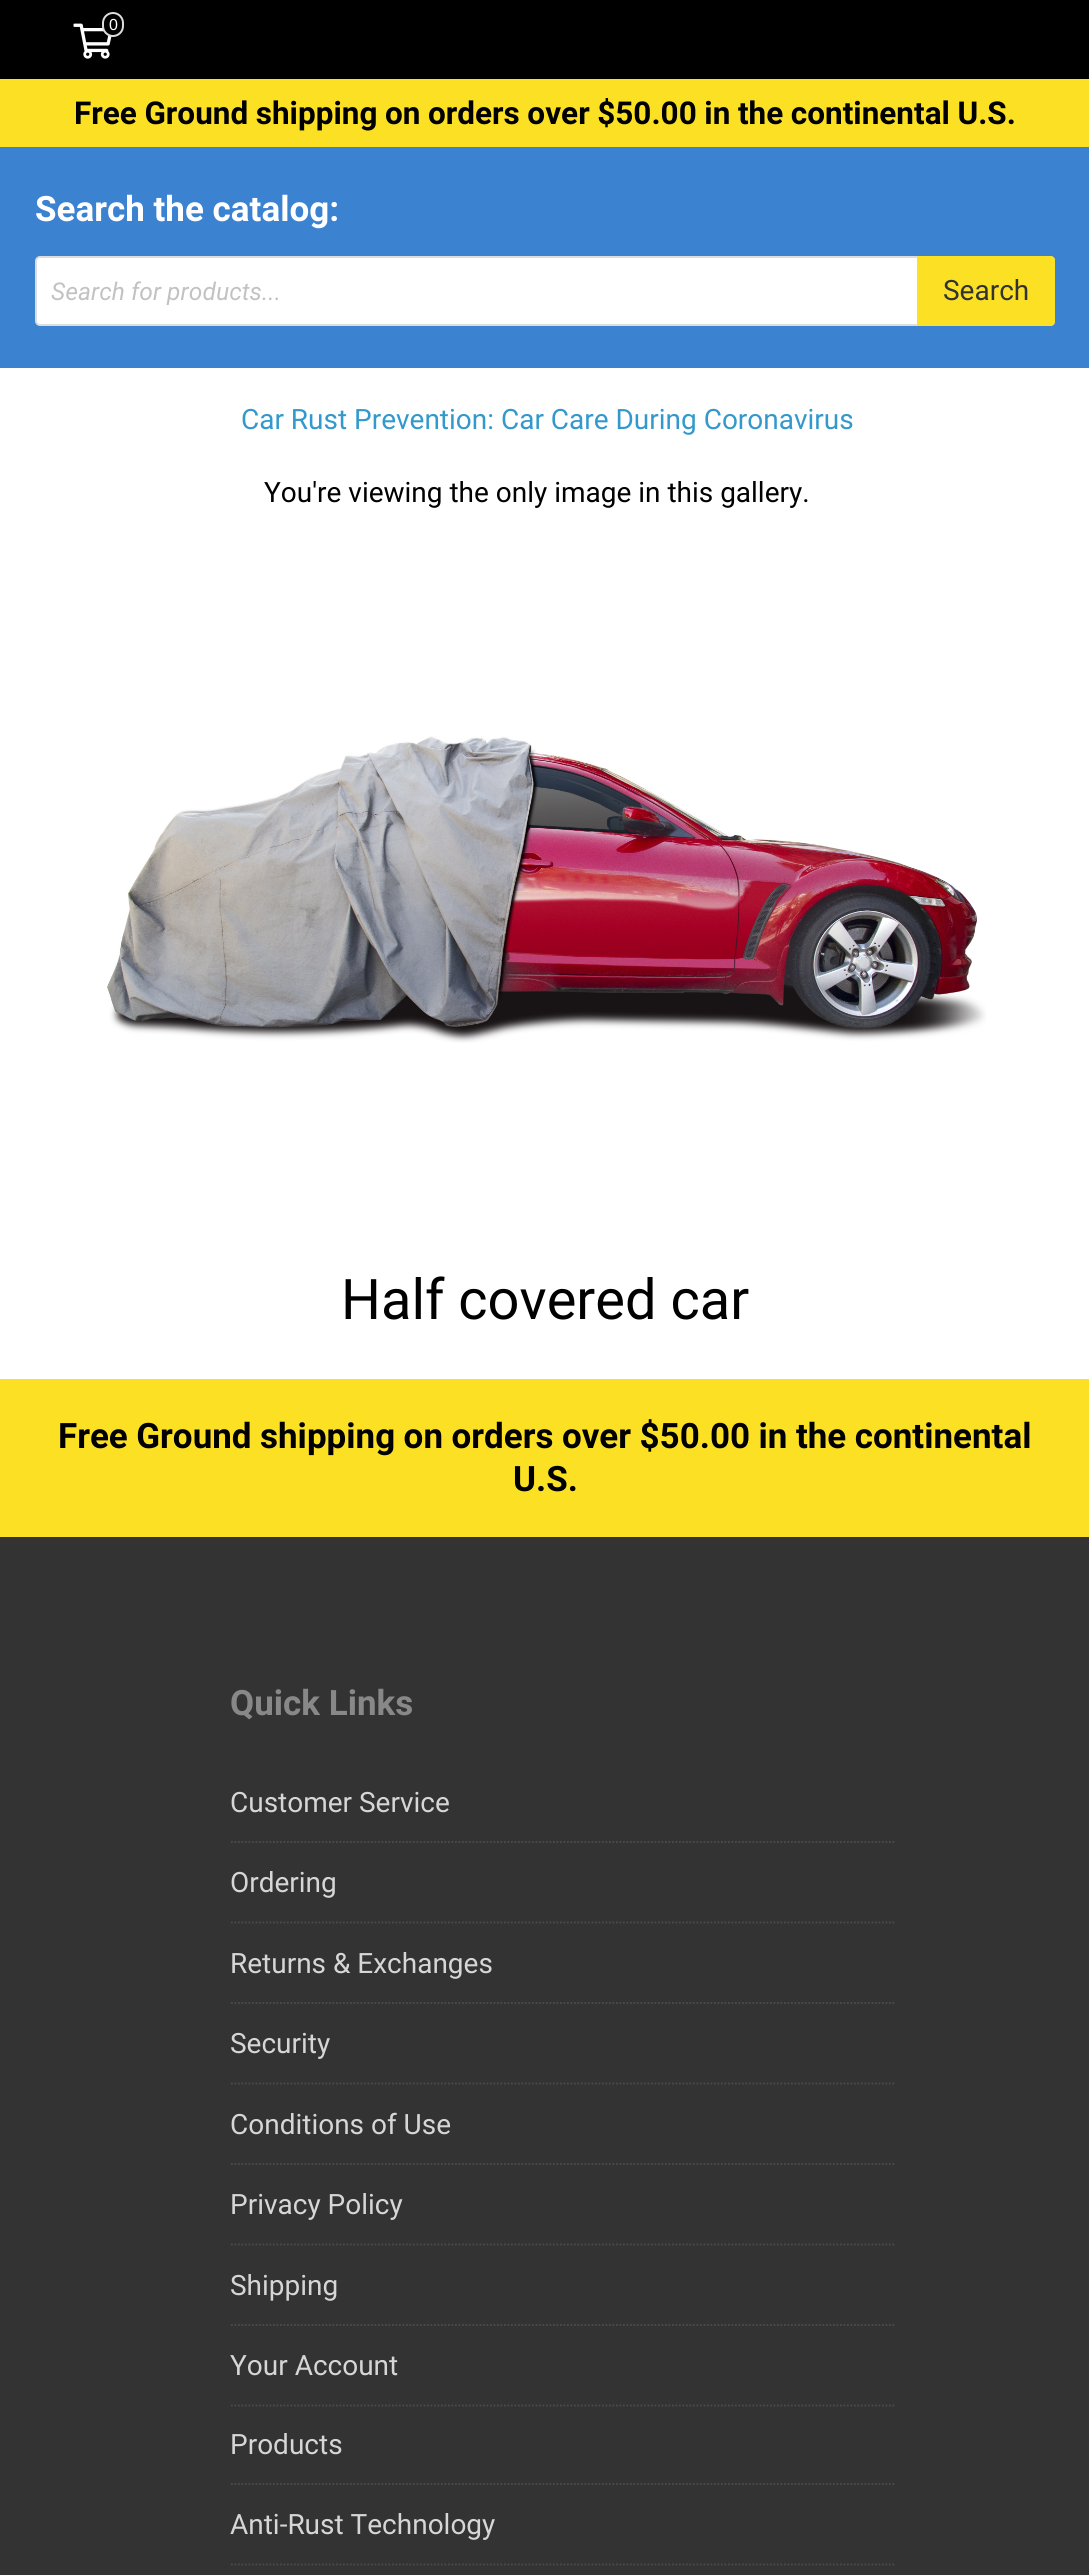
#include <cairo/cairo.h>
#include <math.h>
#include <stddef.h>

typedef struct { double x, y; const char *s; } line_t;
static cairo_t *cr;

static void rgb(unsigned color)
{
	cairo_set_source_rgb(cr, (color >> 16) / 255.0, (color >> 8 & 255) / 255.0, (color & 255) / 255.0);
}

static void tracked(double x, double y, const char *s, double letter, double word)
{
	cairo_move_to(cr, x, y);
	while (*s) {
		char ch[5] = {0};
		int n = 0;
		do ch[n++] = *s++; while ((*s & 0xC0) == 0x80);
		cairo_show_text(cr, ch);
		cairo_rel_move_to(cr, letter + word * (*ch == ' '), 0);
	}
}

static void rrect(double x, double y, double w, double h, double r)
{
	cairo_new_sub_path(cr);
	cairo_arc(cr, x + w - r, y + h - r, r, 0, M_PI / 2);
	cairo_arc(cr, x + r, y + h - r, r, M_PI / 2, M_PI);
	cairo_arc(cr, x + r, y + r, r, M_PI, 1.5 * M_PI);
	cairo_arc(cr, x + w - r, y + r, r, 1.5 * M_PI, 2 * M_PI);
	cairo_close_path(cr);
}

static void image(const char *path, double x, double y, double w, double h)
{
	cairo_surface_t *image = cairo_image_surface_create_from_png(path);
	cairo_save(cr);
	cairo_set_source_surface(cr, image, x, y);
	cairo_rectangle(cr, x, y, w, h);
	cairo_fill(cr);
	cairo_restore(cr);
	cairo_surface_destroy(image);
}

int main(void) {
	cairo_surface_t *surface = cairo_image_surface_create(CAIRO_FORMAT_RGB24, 1089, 2575);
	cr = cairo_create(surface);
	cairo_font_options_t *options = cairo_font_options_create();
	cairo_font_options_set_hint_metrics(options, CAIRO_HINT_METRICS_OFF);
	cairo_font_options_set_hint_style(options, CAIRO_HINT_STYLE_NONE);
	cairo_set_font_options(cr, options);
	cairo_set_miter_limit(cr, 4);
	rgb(0xffffff);
	cairo_paint(cr);
	rgb(0x000000);
	cairo_rectangle(cr, 0, 0, 1089, 79);
	cairo_fill(cr);
	image("img/1.png", 73, 23, 39, 36);
	rrect(103, 13, 20, 23, 10);
	cairo_fill_preserve(cr);
	rgb(0xdddddd);
	cairo_stroke(cr);
	rgb(0x3b82d1);
	cairo_rectangle(cr, 0, 147, 1089, 221);
	cairo_fill(cr);
	rgb(0xfce024);
	cairo_rectangle(cr, 0, 79, 1089, 68);
	cairo_fill(cr);
	rgb(0xffffff);
	rrect(36, 257, 1018, 68, 4);
	cairo_fill_preserve(cr);
	rgb(0xdddddd);
	cairo_stroke(cr);
	rgb(0xfce024);
	cairo_new_path(cr);
	cairo_move_to(cr, 917, 256);
	cairo_line_to(cr, 1051, 256);
	cairo_curve_to(cr, 1053, 256, 1055, 258, 1055, 260);
	cairo_line_to(cr, 1055, 322);
	cairo_curve_to(cr, 1055, 324, 1053, 326, 1051, 326);
	cairo_line_to(cr, 917, 326);
	cairo_close_path(cr);
	cairo_fill(cr);
	image("img/2.png", 107, 736, 879, 307);
	cairo_rectangle(cr, 0, 1379, 1089, 158);
	cairo_fill(cr);
	rgb(0x333333);
	cairo_rectangle(cr, 0, 1537, 1089, 1038);
	cairo_fill(cr);
	cairo_new_path(cr);
	cairo_move_to(cr, 231, 1842);
	cairo_line_to(cr, 896, 1842);
	rgb(0x4b4b4b);
	cairo_set_line_width(cr, 1.8);
	cairo_set_dash(cr, (double[]){1.75, 1.75}, 2, 0);
	cairo_stroke(cr);
	cairo_new_path(cr);
	cairo_move_to(cr, 231, 1922.5);
	cairo_line_to(cr, 896, 1922.5);
	cairo_stroke(cr);
	cairo_new_path(cr);
	cairo_move_to(cr, 231, 2003);
	cairo_line_to(cr, 896, 2003);
	cairo_stroke(cr);
	cairo_new_path(cr);
	cairo_move_to(cr, 231, 2083.5);
	cairo_line_to(cr, 896, 2083.5);
	cairo_stroke(cr);
	cairo_new_path(cr);
	cairo_move_to(cr, 231, 2164);
	cairo_line_to(cr, 896, 2164);
	cairo_stroke(cr);
	cairo_new_path(cr);
	cairo_move_to(cr, 231, 2244.5);
	cairo_line_to(cr, 896, 2244.5);
	cairo_stroke(cr);
	cairo_new_path(cr);
	cairo_move_to(cr, 231, 2325);
	cairo_line_to(cr, 896, 2325);
	cairo_stroke(cr);
	cairo_new_path(cr);
	cairo_move_to(cr, 231, 2405.5);
	cairo_line_to(cr, 896, 2405.5);
	cairo_stroke(cr);
	cairo_new_path(cr);
	cairo_move_to(cr, 231, 2484);
	cairo_line_to(cr, 896, 2484);
	cairo_stroke(cr);
	cairo_new_path(cr);
	cairo_move_to(cr, 231, 2564.5);
	cairo_line_to(cr, 896, 2564.5);
	cairo_stroke(cr);
	cairo_select_font_face(cr, "Liberation Sans", CAIRO_FONT_SLANT_NORMAL, CAIRO_FONT_WEIGHT_NORMAL);
	cairo_set_font_size(cr, 16);
	rgb(0xffffff);
	cairo_move_to(cr, 109, 30);
	cairo_show_text(cr, "0");
	cairo_select_font_face(cr, "Roboto", CAIRO_FONT_SLANT_NORMAL, CAIRO_FONT_WEIGHT_BOLD);
	cairo_set_font_size(cr, 31.5);
	rgb(0x000000);
	tracked(74, 124, "Free Ground shipping on orders over $50.00 in the continental U.S.", 0, -0.25);
	cairo_set_font_size(cr, 35);
	rgb(0xffffff);
	cairo_move_to(cr, 35, 221);
	cairo_show_text(cr, "Search the catalog:");
	cairo_select_font_face(cr, "Roboto", CAIRO_FONT_SLANT_ITALIC, CAIRO_FONT_WEIGHT_NORMAL);
	cairo_set_font_size(cr, 24.5);
	rgb(0xc2c2c2);
	cairo_move_to(cr, 51, 300);
	cairo_show_text(cr, "Search for products...");
	cairo_select_font_face(cr, "Roboto", CAIRO_FONT_SLANT_NORMAL, CAIRO_FONT_WEIGHT_NORMAL);
	cairo_set_font_size(cr, 28);
	rgb(0x333333);
	cairo_move_to(cr, 943, 300);
	cairo_show_text(cr, "Search");
	rgb(0x3399cc);
	cairo_move_to(cr, 241, 429);
	cairo_show_text(cr, "Car Rust Prevention: Car Care During Coronavirus");
	rgb(0x000000);
	cairo_move_to(cr, 264, 502);
	cairo_show_text(cr, "You're viewing the only image in this gallery.");
	cairo_set_font_size(cr, 56);
	cairo_move_to(cr, 341, 1319);
	cairo_show_text(cr, "Half covered car");
	cairo_select_font_face(cr, "Roboto", CAIRO_FONT_SLANT_NORMAL, CAIRO_FONT_WEIGHT_BOLD);
	cairo_set_font_size(cr, 35);
	tracked(58, 1448, "Free Ground shipping on orders over $50.00 in the continental", 0, -0.25);
	cairo_move_to(cr, 513, 1491);
	cairo_show_text(cr, "U.S.");
	rgb(0x888888);
	cairo_move_to(cr, 230, 1715);
	cairo_show_text(cr, "Quick Links");
	cairo_select_font_face(cr, "Roboto", CAIRO_FONT_SLANT_NORMAL, CAIRO_FONT_WEIGHT_NORMAL);
	cairo_set_font_size(cr, 28);
	rgb(0xd6d6d6);
	{
		static const line_t items[] = {
			{230, 1812, "Customer Service"},
			{230, 1892, "Ordering"},
			{230, 1973, "Returns & Exchanges"},
			{230, 2053, "Security"},
			{230, 2134, "Conditions of Use"},
			{230, 2214, "Privacy Policy"},
			{230, 2295, "Shipping"},
			{230, 2375, "Your Account"},
			{230, 2454, "Products"},
			{230, 2534, "Anti-Rust Technology"},
		};
		for (size_t i = 0; i < sizeof items / sizeof *items; i++) {
			cairo_move_to(cr, items[i].x, items[i].y);
			cairo_show_text(cr, items[i].s);
		}
	}
	cairo_surface_write_to_png(surface, "page.png");
	cairo_font_options_destroy(options);
	cairo_destroy(cr);
	cairo_surface_destroy(surface);
	return 0;
}
